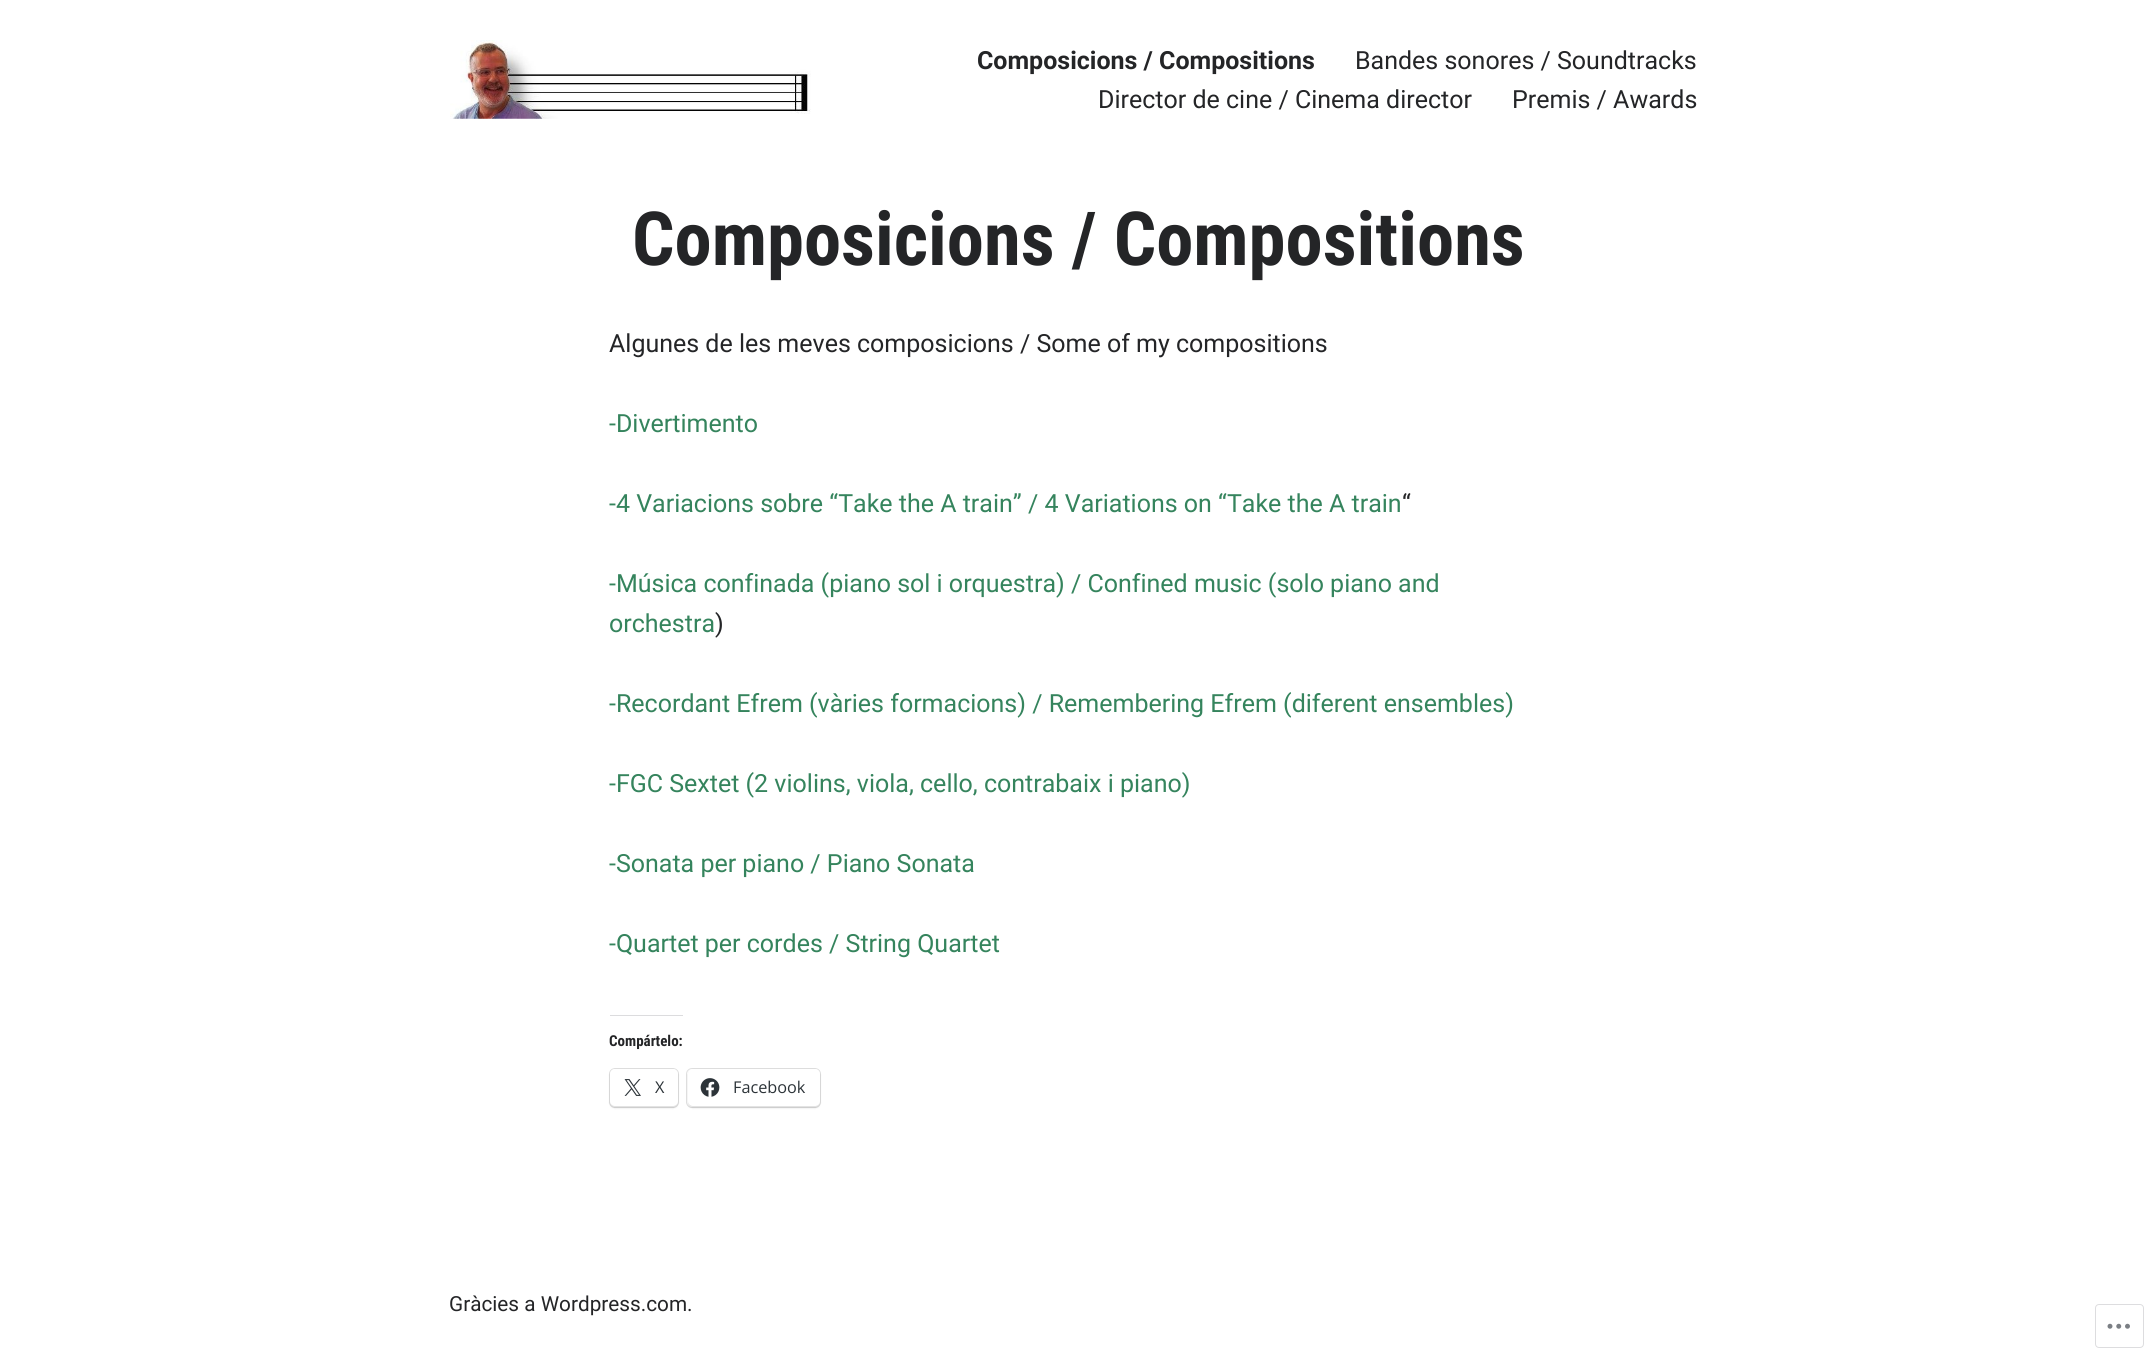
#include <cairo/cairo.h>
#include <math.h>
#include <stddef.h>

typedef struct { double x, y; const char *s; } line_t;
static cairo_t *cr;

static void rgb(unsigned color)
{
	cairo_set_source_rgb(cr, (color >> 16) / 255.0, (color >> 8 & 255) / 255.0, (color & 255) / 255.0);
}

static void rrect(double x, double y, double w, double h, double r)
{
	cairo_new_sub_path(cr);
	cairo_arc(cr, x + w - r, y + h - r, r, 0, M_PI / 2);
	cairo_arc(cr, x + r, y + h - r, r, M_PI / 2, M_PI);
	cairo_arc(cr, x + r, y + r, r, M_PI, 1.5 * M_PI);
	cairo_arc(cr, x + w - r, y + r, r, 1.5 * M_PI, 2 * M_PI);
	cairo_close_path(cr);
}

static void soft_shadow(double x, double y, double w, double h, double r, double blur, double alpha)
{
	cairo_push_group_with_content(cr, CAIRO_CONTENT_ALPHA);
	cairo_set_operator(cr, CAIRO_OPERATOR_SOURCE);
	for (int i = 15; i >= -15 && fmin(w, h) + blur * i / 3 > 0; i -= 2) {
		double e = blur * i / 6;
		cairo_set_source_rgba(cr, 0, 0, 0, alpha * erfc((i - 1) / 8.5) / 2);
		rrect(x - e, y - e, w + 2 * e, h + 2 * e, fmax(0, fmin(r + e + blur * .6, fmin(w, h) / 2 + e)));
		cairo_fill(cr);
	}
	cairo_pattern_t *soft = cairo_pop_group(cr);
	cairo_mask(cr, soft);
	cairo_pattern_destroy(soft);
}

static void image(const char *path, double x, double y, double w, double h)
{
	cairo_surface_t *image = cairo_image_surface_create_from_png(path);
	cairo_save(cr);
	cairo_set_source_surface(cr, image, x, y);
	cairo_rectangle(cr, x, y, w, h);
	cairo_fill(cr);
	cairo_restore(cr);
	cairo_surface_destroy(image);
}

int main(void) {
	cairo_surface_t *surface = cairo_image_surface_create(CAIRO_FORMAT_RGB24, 2156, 1360);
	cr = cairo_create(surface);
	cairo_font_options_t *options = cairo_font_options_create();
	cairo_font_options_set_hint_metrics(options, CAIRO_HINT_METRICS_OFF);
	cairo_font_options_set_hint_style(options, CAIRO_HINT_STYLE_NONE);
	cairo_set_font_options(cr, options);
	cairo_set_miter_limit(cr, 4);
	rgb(0xffffff);
	cairo_paint(cr);
	image("img/1.png", 450, 40, 361, 79);
	rgb(0xdcdcde);
	cairo_rectangle(cr, 610, 1015, 73, 1);
	cairo_fill(cr);
	rrect(609.5, 1068.5, 69, 39, 5.5);
	rgb(0xe0e0e0);
	cairo_set_line_width(cr, 1);
	cairo_stroke(cr);
	rgb(0x000000);
	soft_shadow(610, 1070, 68, 38, 5, 1, 0.12);
	rgb(0xffffff);
	rrect(610, 1069, 68, 37, 5);
	cairo_fill(cr);
	image("img/2.png", 624, 1079, 17, 17);
	rrect(686.5, 1068.5, 134, 39, 5.5);
	rgb(0xe0e0e0);
	cairo_stroke(cr);
	rgb(0x000000);
	soft_shadow(688, 1070, 132, 38, 5, 1, 0.12);
	rgb(0xffffff);
	rrect(688, 1069, 132, 37, 5);
	cairo_fill(cr);
	image("img/3.png", 700, 1078, 20, 19);
	rrect(2095.5, 1304.5, 48, 43, 3.5);
	rgb(0xdddddf);
	cairo_stroke(cr);
	image("img/4.png", 2107, 1323, 23, 6);
	cairo_select_font_face(cr, "Roboto", CAIRO_FONT_SLANT_NORMAL, CAIRO_FONT_WEIGHT_BOLD);
	cairo_set_font_size(cr, 25);
	rgb(0x242527);
	cairo_move_to(cr, 977, 69);
	cairo_show_text(cr, "Composicions / Compositions");
	cairo_select_font_face(cr, "Roboto", CAIRO_FONT_SLANT_NORMAL, CAIRO_FONT_WEIGHT_NORMAL);
	{
		static const line_t items[] = {
			{1355, 69, "Bandes sonores / Soundtracks"},
			{1098, 108, "Director de cine / Cinema director"},
			{1512, 108, "Premis / Awards"},
		};
		for (size_t i = 0; i < sizeof items / sizeof *items; i++) {
			cairo_move_to(cr, items[i].x, items[i].y);
			cairo_show_text(cr, items[i].s);
		}
	}
	cairo_select_font_face(cr, "Roboto Condensed", CAIRO_FONT_SLANT_NORMAL, CAIRO_FONT_WEIGHT_BOLD);
	cairo_set_font_size(cr, 74.6);
	cairo_move_to(cr, 632, 265);
	cairo_show_text(cr, "Composicions / Compositions");
	cairo_select_font_face(cr, "Roboto", CAIRO_FONT_SLANT_NORMAL, CAIRO_FONT_WEIGHT_NORMAL);
	cairo_set_font_size(cr, 25);
	cairo_move_to(cr, 609, 352);
	cairo_show_text(cr, "Algunes de les meves composicions / Some of my compositions");
	rgb(0x35845d);
	cairo_move_to(cr, 609, 432);
	cairo_show_text(cr, "-Divertimento");
	cairo_move_to(cr, 609, 512);
	cairo_show_text(cr, "-4 Variacions sobre “Take the A train” / 4 Variations on “Take the A train");
	rgb(0x242527);
	cairo_move_to(cr, 1402, 512);
	cairo_show_text(cr, "“");
	rgb(0x35845d);
	cairo_move_to(cr, 609, 592);
	cairo_show_text(cr, "-Música confinada (piano sol i orquestra) / Confined music (solo piano and");
	cairo_move_to(cr, 609, 632);
	cairo_show_text(cr, "orchestra");
	rgb(0x242527);
	cairo_move_to(cr, 715, 632);
	cairo_show_text(cr, ")");
	rgb(0x35845d);
	{
		static const line_t items[] = {
			{609, 712, "-Recordant Efrem (vàries formacions) / Remembering Efrem (diferent ensembles)"},
			{609, 792, "-FGC Sextet (2 violins, viola, cello, contrabaix i piano)"},
			{609, 872, "-Sonata per piano / Piano Sonata"},
			{609, 952, "-Quartet per cordes / String Quartet"},
		};
		for (size_t i = 0; i < sizeof items / sizeof *items; i++) {
			cairo_move_to(cr, items[i].x, items[i].y);
			cairo_show_text(cr, items[i].s);
		}
	}
	cairo_select_font_face(cr, "Roboto Condensed", CAIRO_FONT_SLANT_NORMAL, CAIRO_FONT_WEIGHT_BOLD);
	cairo_set_font_size(cr, 15);
	rgb(0x242527);
	cairo_move_to(cr, 609, 1046);
	cairo_show_text(cr, "Compártelo:");
	cairo_select_font_face(cr, "Open Sans", CAIRO_FONT_SLANT_NORMAL, CAIRO_FONT_WEIGHT_NORMAL);
	cairo_set_font_size(cr, 16.25);
	rgb(0x2c3338);
	cairo_move_to(cr, 655, 1093);
	cairo_show_text(cr, "X");
	cairo_move_to(cr, 733, 1093);
	cairo_show_text(cr, "Facebook");
	cairo_select_font_face(cr, "Roboto", CAIRO_FONT_SLANT_NORMAL, CAIRO_FONT_WEIGHT_NORMAL);
	cairo_set_font_size(cr, 20.75);
	rgb(0x242527);
	cairo_move_to(cr, 449, 1311);
	cairo_show_text(cr, "Gràcies a Wordpress.com.");
	cairo_surface_write_to_png(surface, "page.png");
	cairo_font_options_destroy(options);
	cairo_destroy(cr);
	cairo_surface_destroy(surface);
	return 0;
}
